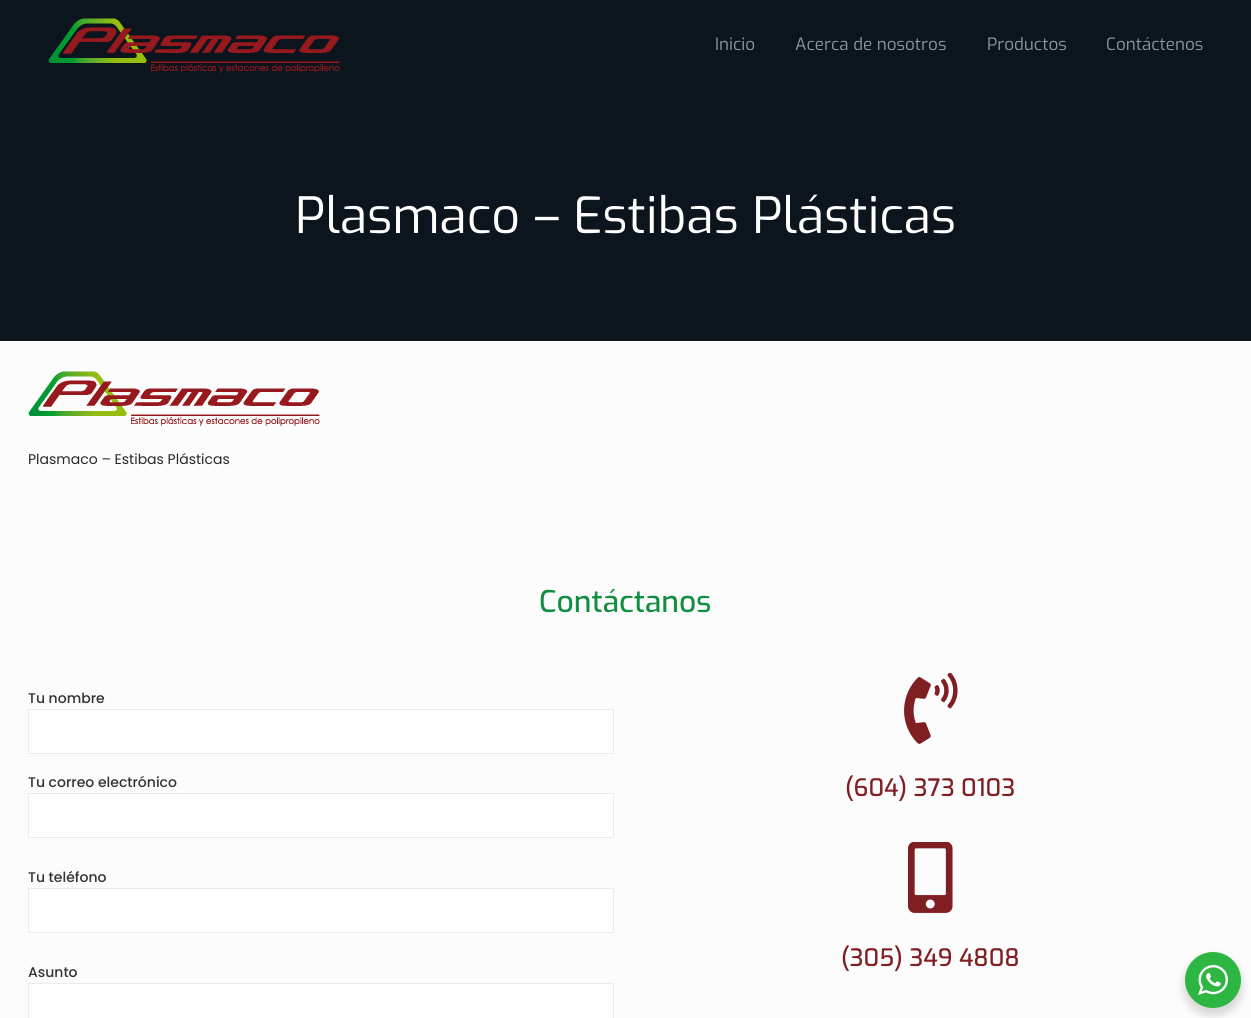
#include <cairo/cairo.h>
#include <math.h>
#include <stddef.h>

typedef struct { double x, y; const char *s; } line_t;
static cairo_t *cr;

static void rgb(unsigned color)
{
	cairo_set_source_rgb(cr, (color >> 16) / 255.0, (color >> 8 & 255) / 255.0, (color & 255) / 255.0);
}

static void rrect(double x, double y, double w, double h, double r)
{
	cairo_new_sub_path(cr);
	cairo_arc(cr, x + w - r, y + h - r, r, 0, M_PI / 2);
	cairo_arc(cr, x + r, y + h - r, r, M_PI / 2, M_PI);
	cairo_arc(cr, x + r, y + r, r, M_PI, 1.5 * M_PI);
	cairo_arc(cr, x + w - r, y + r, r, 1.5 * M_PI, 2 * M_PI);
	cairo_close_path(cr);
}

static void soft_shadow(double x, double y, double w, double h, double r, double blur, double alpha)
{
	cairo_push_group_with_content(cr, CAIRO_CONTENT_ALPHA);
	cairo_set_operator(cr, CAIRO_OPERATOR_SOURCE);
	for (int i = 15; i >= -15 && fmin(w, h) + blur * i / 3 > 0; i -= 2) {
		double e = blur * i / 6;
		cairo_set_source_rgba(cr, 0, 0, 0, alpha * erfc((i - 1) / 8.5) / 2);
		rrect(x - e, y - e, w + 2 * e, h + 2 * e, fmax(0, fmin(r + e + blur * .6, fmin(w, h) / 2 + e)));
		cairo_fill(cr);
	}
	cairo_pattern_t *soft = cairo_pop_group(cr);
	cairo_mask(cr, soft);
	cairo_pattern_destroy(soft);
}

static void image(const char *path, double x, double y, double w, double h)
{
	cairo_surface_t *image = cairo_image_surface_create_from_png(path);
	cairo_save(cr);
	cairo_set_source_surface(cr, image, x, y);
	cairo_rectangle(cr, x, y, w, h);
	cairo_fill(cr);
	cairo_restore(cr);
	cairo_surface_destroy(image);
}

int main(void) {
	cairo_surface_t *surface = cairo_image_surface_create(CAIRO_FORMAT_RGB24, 1251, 1018);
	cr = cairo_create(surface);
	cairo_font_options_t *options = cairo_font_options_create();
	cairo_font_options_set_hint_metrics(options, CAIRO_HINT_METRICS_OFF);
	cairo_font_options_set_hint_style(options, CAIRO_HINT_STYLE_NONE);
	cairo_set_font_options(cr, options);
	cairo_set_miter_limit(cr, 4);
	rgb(0xfcfcfc);
	cairo_paint(cr);
	rgb(0x0c141d);
	cairo_rectangle(cr, 0, 0, 1251, 341);
	cairo_fill(cr);
	image("img/1.png", 48, 18, 292, 55);
	image("img/2.png", 28, 371, 292, 55);
	rgb(0xffffff);
	cairo_rectangle(cr, 28.5, 709.5, 585, 44);
	cairo_fill_preserve(cr);
	rgb(0xebebeb);
	cairo_set_line_width(cr, 1);
	cairo_stroke(cr);
	rgb(0xffffff);
	cairo_rectangle(cr, 28.5, 793.5, 585, 44);
	cairo_fill_preserve(cr);
	rgb(0xebebeb);
	cairo_stroke(cr);
	rgb(0xffffff);
	cairo_rectangle(cr, 28.5, 888.5, 585, 44);
	cairo_fill_preserve(cr);
	rgb(0xebebeb);
	cairo_stroke(cr);
	rgb(0xffffff);
	cairo_rectangle(cr, 28.5, 983.5, 585, 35);
	cairo_fill_preserve(cr);
	rgb(0xebebeb);
	cairo_stroke(cr);
	image("img/3.png", 904, 673, 54, 71);
	image("img/4.png", 908, 842, 45, 71);
	rgb(0x000000);
	soft_shadow(1183, 956, 60, 60, 30, 4, 0.14);
	rgb(0x2db742);
	cairo_arc(cr, 1213, 980, 28, 0, 2 * M_PI);
	cairo_fill(cr);
	image("img/5.png", 1198, 965, 30, 30);
	cairo_select_font_face(cr, "Exo", CAIRO_FONT_SLANT_NORMAL, CAIRO_FONT_WEIGHT_NORMAL);
	cairo_set_font_size(cr, 17);
	rgb(0x8b989b);
	{
		static const line_t items[] = {
			{715, 50, "Inicio"},
			{795, 50, "Acerca de nosotros"},
			{987, 50, "Productos"},
			{1106, 50, "Contáctenos"},
		};
		for (size_t i = 0; i < sizeof items / sizeof *items; i++) {
			cairo_move_to(cr, items[i].x, items[i].y);
			cairo_show_text(cr, items[i].s);
		}
	}
	cairo_set_font_size(cr, 50);
	rgb(0xffffff);
	cairo_move_to(cr, 295, 233);
	cairo_show_text(cr, "Plasmaco – Estibas Plásticas");
	cairo_select_font_face(cr, "Poppins", CAIRO_FONT_SLANT_NORMAL, CAIRO_FONT_WEIGHT_NORMAL);
	cairo_set_font_size(cr, 14);
	rgb(0x272727);
	cairo_move_to(cr, 28, 464);
	cairo_show_text(cr, "Plasmaco – Estibas Plásticas");
	cairo_select_font_face(cr, "Exo Medium", CAIRO_FONT_SLANT_NORMAL, CAIRO_FONT_WEIGHT_NORMAL);
	cairo_set_font_size(cr, 30);
	rgb(0x118e40);
	cairo_move_to(cr, 539, 612);
	cairo_show_text(cr, "Contáctanos");
	cairo_select_font_face(cr, "Poppins Medium", CAIRO_FONT_SLANT_NORMAL, CAIRO_FONT_WEIGHT_NORMAL);
	cairo_set_font_size(cr, 14);
	rgb(0x333333);
	{
		static const line_t items[] = {
			{28, 703, "Tu nombre"},
			{28, 787, "Tu correo electrónico"},
			{28, 882, "Tu teléfono"},
			{28, 977, "Asunto"},
		};
		for (size_t i = 0; i < sizeof items / sizeof *items; i++) {
			cairo_move_to(cr, items[i].x, items[i].y);
			cairo_show_text(cr, items[i].s);
		}
	}
	cairo_select_font_face(cr, "Exo Medium", CAIRO_FONT_SLANT_NORMAL, CAIRO_FONT_WEIGHT_NORMAL);
	cairo_set_font_size(cr, 24);
	rgb(0x801f22);
	cairo_move_to(cr, 845, 796);
	cairo_show_text(cr, "(604) 373 0103");
	cairo_move_to(cr, 841, 966);
	cairo_show_text(cr, "(305) 349 4808");
	cairo_surface_write_to_png(surface, "page.png");
	cairo_font_options_destroy(options);
	cairo_destroy(cr);
	cairo_surface_destroy(surface);
	return 0;
}
